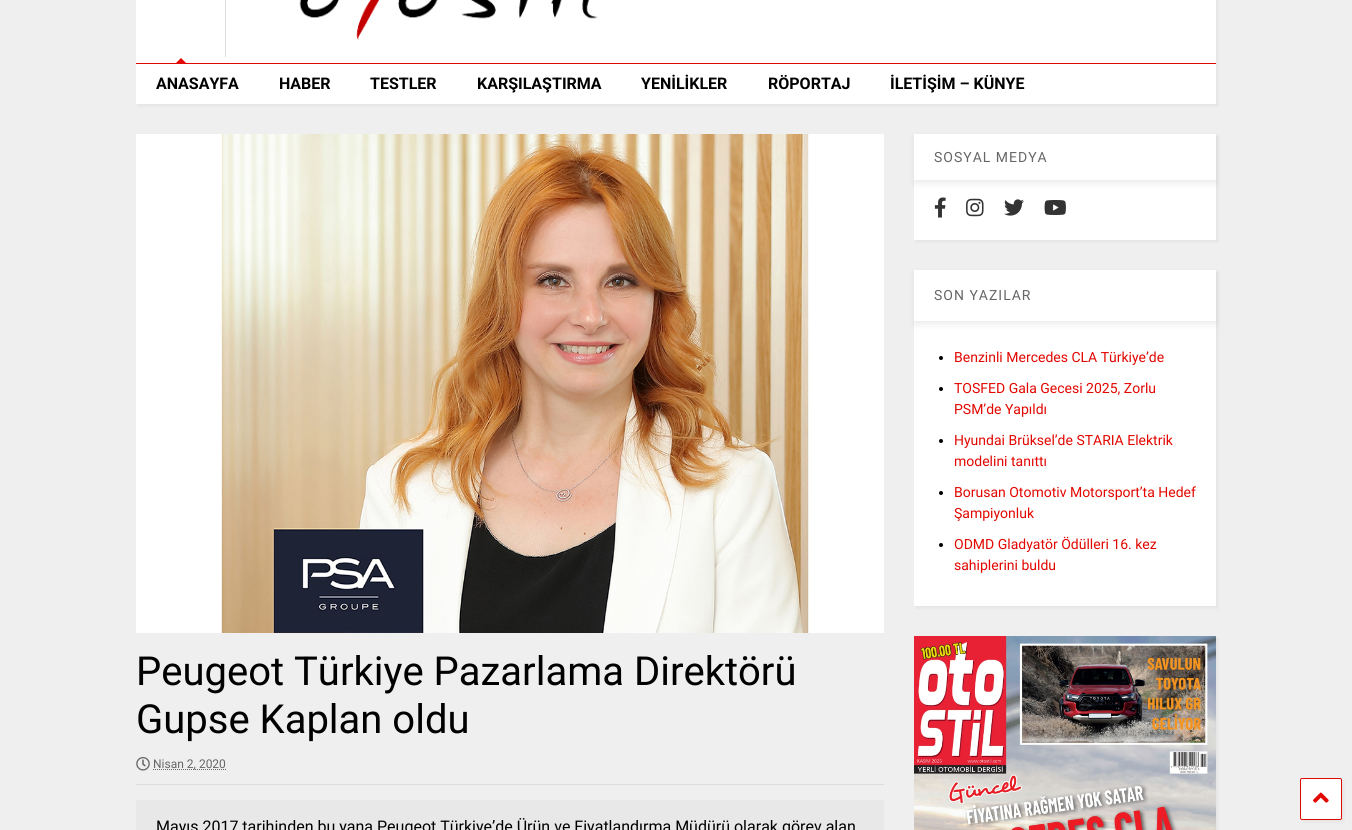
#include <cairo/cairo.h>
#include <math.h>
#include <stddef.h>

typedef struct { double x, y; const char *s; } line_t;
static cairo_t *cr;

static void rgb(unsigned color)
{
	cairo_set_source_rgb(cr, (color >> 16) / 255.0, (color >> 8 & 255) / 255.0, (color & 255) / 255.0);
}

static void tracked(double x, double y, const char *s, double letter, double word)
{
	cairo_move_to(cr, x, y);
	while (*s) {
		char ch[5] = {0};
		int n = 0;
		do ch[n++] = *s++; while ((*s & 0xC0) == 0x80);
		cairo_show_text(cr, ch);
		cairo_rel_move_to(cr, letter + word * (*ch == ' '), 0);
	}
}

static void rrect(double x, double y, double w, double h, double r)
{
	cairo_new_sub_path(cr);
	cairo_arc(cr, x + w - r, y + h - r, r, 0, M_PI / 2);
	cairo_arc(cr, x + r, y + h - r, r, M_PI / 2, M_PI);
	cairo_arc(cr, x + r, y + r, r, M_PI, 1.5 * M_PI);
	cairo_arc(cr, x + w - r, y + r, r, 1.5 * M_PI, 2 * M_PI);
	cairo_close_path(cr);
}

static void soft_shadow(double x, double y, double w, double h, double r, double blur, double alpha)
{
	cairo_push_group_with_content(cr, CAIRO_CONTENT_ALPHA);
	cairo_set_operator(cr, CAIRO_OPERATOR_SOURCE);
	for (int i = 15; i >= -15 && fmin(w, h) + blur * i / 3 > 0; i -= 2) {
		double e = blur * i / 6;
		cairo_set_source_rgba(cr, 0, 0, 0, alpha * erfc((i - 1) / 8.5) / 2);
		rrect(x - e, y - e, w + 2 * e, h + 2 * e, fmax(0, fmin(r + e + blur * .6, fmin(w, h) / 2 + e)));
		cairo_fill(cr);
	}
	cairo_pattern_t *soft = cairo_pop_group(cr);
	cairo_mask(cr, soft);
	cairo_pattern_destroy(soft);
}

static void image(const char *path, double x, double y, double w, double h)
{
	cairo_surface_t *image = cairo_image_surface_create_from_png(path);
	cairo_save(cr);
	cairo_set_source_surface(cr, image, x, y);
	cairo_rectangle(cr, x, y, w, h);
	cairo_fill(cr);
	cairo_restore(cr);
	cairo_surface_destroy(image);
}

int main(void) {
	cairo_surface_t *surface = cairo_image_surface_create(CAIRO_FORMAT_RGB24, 1352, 830);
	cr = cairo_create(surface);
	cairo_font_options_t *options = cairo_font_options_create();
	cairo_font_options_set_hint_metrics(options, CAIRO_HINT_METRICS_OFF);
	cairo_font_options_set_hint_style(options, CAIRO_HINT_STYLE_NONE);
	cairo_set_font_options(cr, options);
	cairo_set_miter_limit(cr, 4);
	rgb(0xefefef);
	cairo_paint(cr);
	rgb(0x000000);
	soft_shadow(138, -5, 1080, 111, 0, 1.5, 0.05);
	rgb(0xffffff);
	cairo_rectangle(cr, 136, 0, 1080, 104);
	cairo_fill(cr);
	rgb(0xdddddd);
	cairo_rectangle(cr, 225, 0, 1, 57);
	cairo_fill(cr);
	image("img/1.png", 299, 0, 299, 40);
	rgb(0xe20700);
	cairo_new_path(cr);
	cairo_move_to(cr, 186, 63);
	cairo_line_to(cr, 176, 63);
	cairo_line_to(cr, 181, 58);
	cairo_close_path(cr);
	cairo_fill(cr);
	cairo_rectangle(cr, 136, 63, 1080, 1);
	cairo_fill(cr);
	rgb(0x000000);
	soft_shadow(916, 136, 302, 106, 0, 1.5, 0.05);
	rgb(0xffffff);
	cairo_rectangle(cr, 914, 134, 302, 106);
	cairo_fill(cr);
	cairo_save(cr);
	cairo_set_fill_rule(cr, CAIRO_FILL_RULE_EVEN_ODD);
	cairo_new_path(cr);
	cairo_move_to(cr, 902, 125);
	cairo_line_to(cr, 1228, 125);
	cairo_line_to(cr, 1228, 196);
	cairo_line_to(cr, 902, 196);
	cairo_close_path(cr);
	cairo_move_to(cr, 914, 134);
	cairo_line_to(cr, 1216, 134);
	cairo_line_to(cr, 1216, 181);
	cairo_line_to(cr, 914, 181);
	cairo_close_path(cr);
	cairo_clip(cr);
	rgb(0x000000);
	soft_shadow(914, 137, 302, 47, 0, 3.5, 0.07);
	cairo_restore(cr);
	rgb(0xeeeeee);
	cairo_rectangle(cr, 914, 180, 302, 1);
	cairo_fill(cr);
	image("img/2.png", 934, 197, 12, 21);
	image("img/3.png", 966, 198, 18, 19);
	image("img/4.png", 1004, 199, 20, 17);
	image("img/5.png", 1044, 200, 22, 15);
	rgb(0x000000);
	soft_shadow(916, 272, 302, 336, 0, 1.5, 0.05);
	rgb(0xffffff);
	cairo_rectangle(cr, 914, 270, 302, 336);
	cairo_fill(cr);
	cairo_save(cr);
	cairo_set_fill_rule(cr, CAIRO_FILL_RULE_EVEN_ODD);
	cairo_new_path(cr);
	cairo_move_to(cr, 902, 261);
	cairo_line_to(cr, 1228, 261);
	cairo_line_to(cr, 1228, 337);
	cairo_line_to(cr, 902, 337);
	cairo_close_path(cr);
	cairo_move_to(cr, 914, 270);
	cairo_line_to(cr, 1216, 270);
	cairo_line_to(cr, 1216, 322);
	cairo_line_to(cr, 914, 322);
	cairo_close_path(cr);
	cairo_clip(cr);
	rgb(0x000000);
	soft_shadow(914, 273, 302, 52, 0, 3.5, 0.07);
	cairo_restore(cr);
	rgb(0xeeeeee);
	cairo_rectangle(cr, 914, 321, 302, 1);
	cairo_fill(cr);
	rgb(0x000000);
	cairo_arc(cr, 941, 358, 2, 0, 2 * M_PI);
	cairo_fill(cr);
	cairo_arc(cr, 941, 389, 2, 0, 2 * M_PI);
	cairo_fill(cr);
	cairo_arc(cr, 941, 441, 2, 0, 2 * M_PI);
	cairo_fill(cr);
	cairo_arc(cr, 941, 493, 2, 0, 2 * M_PI);
	cairo_fill(cr);
	cairo_arc(cr, 941, 545, 2, 0, 2 * M_PI);
	cairo_fill(cr);
	rgb(0x000000);
	soft_shadow(916, 638, 302, 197, 0, 1.5, 0.05);
	image("img/6.png", 914, 636, 302, 194);
	image("img/7.png", 136, 134, 748, 499);
	rgb(0xdddddd);
	cairo_rectangle(cr, 136, 784, 748, 1);
	cairo_fill(cr);
	image("img/8.png", 136, 757, 14, 14);
	cairo_new_path(cr);
	cairo_move_to(cr, 153, 769.5);
	cairo_line_to(cr, 226, 769.5);
	rgb(0x666666);
	cairo_set_line_width(cr, 1);
	cairo_set_dash(cr, (double[]){1, 1}, 2, 0);
	cairo_stroke(cr);
	rgb(0xe8e8e8);
	cairo_rectangle(cr, 136, 800, 748, 30);
	cairo_fill(cr);
	rgb(0x000000);
	soft_shadow(1302, 780, 42, 42, 2, 1.5, 0.05);
	rgb(0xffffff);
	rrect(1300.5, 778.5, 41, 41, 1.5);
	cairo_fill_preserve(cr);
	rgb(0xe20700);
	cairo_set_dash(cr, NULL, 0, 0);
	cairo_stroke(cr);
	image("img/9.png", 1313, 792, 16, 11);
	cairo_select_font_face(cr, "Roboto", CAIRO_FONT_SLANT_NORMAL, CAIRO_FONT_WEIGHT_BOLD);
	cairo_set_font_size(cr, 16);
	rgb(0x000000);
	{
		static const line_t items[] = {
			{156, 89, "ANASAYFA"},
			{279, 89, "HABER"},
			{370, 89, "TESTLER"},
			{477, 89, "KARŞILAŞTIRMA"},
			{641, 89, "YENİLİKLER"},
			{768, 89, "RÖPORTAJ"},
			{890, 89, "İLETİŞİM – KÜNYE"},
		};
		for (size_t i = 0; i < sizeof items / sizeof *items; i++) {
			cairo_move_to(cr, items[i].x, items[i].y);
			cairo_show_text(cr, items[i].s);
		}
	}
	cairo_select_font_face(cr, "Roboto", CAIRO_FONT_SLANT_NORMAL, CAIRO_FONT_WEIGHT_NORMAL);
	cairo_set_font_size(cr, 14);
	rgb(0x666666);
	tracked(934, 162, "SOSYAL MEDYA", 1, 0);
	tracked(934, 300, "SON YAZILAR", 1, 0);
	rgb(0xe20700);
	{
		static const line_t items[] = {
			{954, 362, "Benzinli Mercedes CLA Türkiye’de"},
			{954, 393, "TOSFED Gala Gecesi 2025, Zorlu"},
			{954, 414, "PSM’de Yapıldı"},
			{954, 445, "Hyundai Brüksel’de STARIA Elektrik"},
			{954, 466, "modelini tanıttı"},
			{954, 497, "Borusan Otomotiv Motorsport’ta Hedef"},
			{954, 518, "Şampiyonluk"},
			{954, 549, "ODMD Gladyatör Ödülleri 16. kez"},
			{954, 570, "sahiplerini buldu"},
		};
		for (size_t i = 0; i < sizeof items / sizeof *items; i++) {
			cairo_move_to(cr, items[i].x, items[i].y);
			cairo_show_text(cr, items[i].s);
		}
	}
	cairo_set_font_size(cr, 40);
	rgb(0x000000);
	cairo_move_to(cr, 136, 685);
	cairo_show_text(cr, "Peugeot Türkiye Pazarlama Direktörü");
	cairo_move_to(cr, 136, 733);
	cairo_show_text(cr, "Gupse Kaplan oldu");
	cairo_set_font_size(cr, 12);
	rgb(0x666666);
	cairo_move_to(cr, 153, 768);
	cairo_show_text(cr, "Nisan 2, 2020");
	cairo_set_font_size(cr, 16);
	rgb(0x000000);
	cairo_move_to(cr, 156, 832);
	cairo_show_text(cr, "Mayıs 2017 tarihinden bu yana Peugeot Türkiye’de Ürün ve Fiyatlandırma Müdürü olarak görev alan");
	cairo_surface_write_to_png(surface, "page.png");
	cairo_font_options_destroy(options);
	cairo_destroy(cr);
	cairo_surface_destroy(surface);
	return 0;
}
